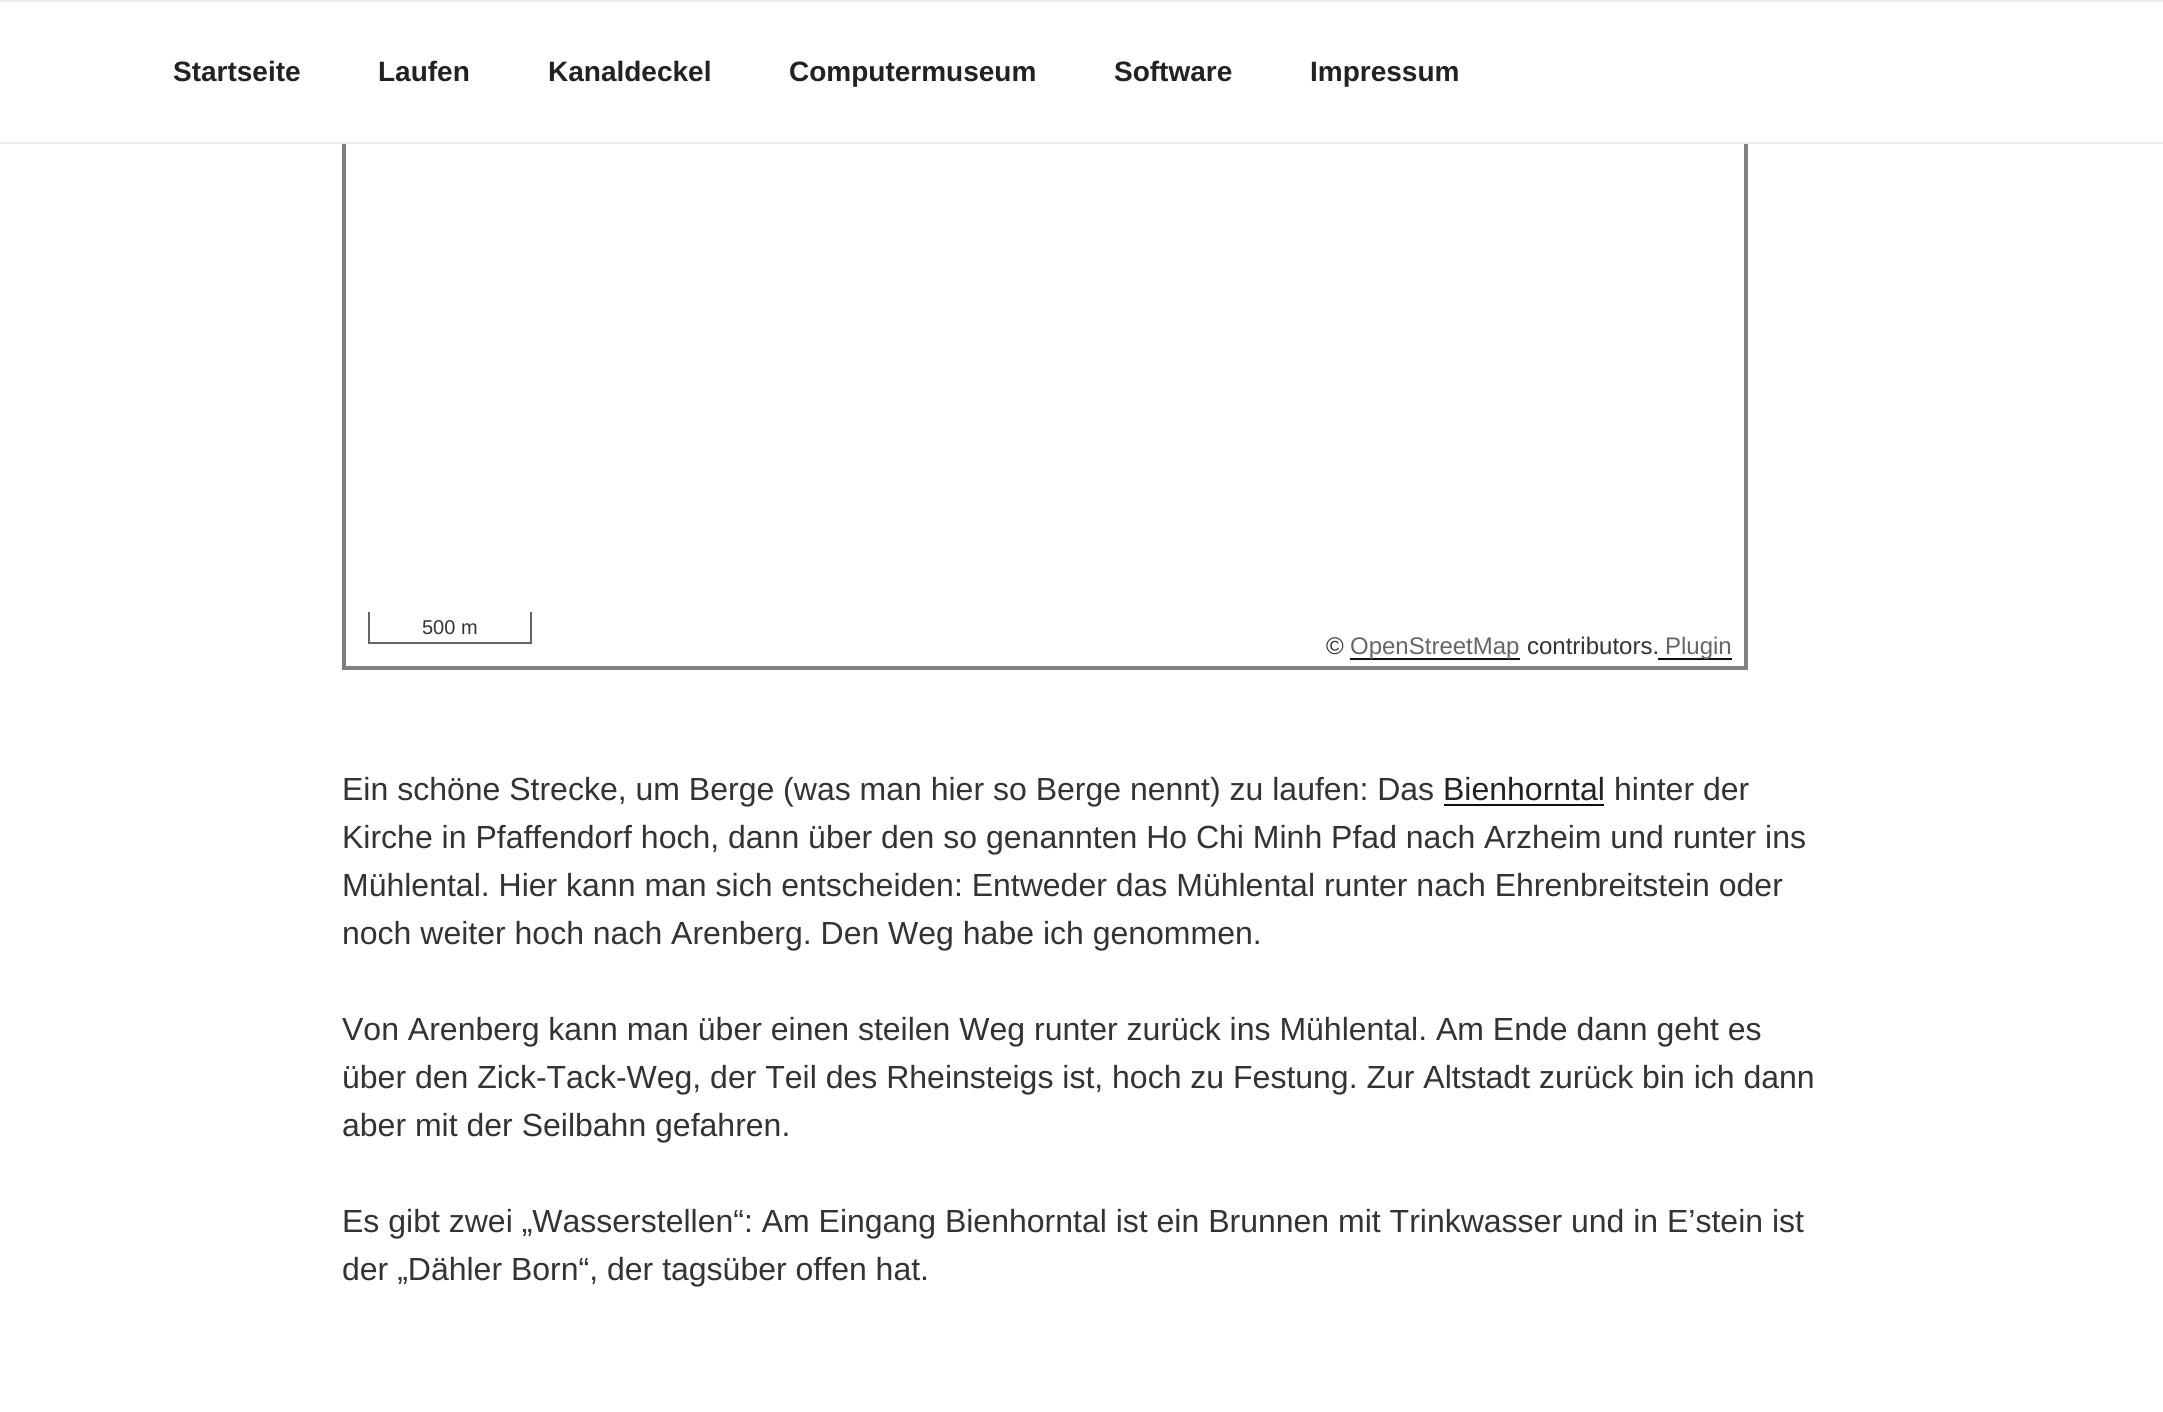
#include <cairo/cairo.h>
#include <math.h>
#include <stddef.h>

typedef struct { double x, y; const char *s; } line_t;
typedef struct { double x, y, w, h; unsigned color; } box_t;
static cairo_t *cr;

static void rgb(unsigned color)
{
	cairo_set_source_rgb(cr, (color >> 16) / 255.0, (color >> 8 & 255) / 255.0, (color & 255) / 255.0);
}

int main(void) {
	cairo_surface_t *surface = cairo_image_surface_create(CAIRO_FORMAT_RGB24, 2163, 1412);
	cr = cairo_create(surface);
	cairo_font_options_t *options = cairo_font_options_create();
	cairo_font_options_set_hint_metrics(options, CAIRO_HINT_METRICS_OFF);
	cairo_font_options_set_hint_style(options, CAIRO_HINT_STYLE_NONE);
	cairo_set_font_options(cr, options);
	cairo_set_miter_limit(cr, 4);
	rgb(0xffffff);
	cairo_paint(cr);
	cairo_rectangle(cr, 344, -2, 1402, 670);
	rgb(0x808080);
	cairo_set_line_width(cr, 4);
	cairo_stroke(cr);
	{
		static const box_t items[] = {
			{342, 2, 1406, 140, 0xffffff},
			{0, 0, 2163, 2, 0xeeeeee},
			{0, 142, 2163, 2, 0xeeeeee},
			{530, 612, 2, 32, 0x666666},
			{368, 642, 164, 2, 0x666666},
			{368, 612, 2, 32, 0x666666},
			{1350, 658, 170, 2, 0x0f0f0f},
			{1658, 658, 74, 2, 0x0f0f0f},
			{1444, 804, 160, 2, 0x0f0f0f},
		};
		for (size_t i = 0; i < sizeof items / sizeof *items; i++) {
			rgb(items[i].color);
			cairo_rectangle(cr, items[i].x, items[i].y, items[i].w, items[i].h);
			cairo_fill(cr);
		}
	}
	cairo_select_font_face(cr, "Liberation Sans", CAIRO_FONT_SLANT_NORMAL, CAIRO_FONT_WEIGHT_BOLD);
	cairo_set_font_size(cr, 28);
	rgb(0x222222);
	{
		static const line_t items[] = {
			{173, 81, "Startseite"},
			{378, 81, "Laufen"},
			{548, 81, "Kanaldeckel"},
			{789, 81, "Computermuseum"},
			{1114, 81, "Software"},
			{1310, 81, "Impressum"},
		};
		for (size_t i = 0; i < sizeof items / sizeof *items; i++) {
			cairo_move_to(cr, items[i].x, items[i].y);
			cairo_show_text(cr, items[i].s);
		}
	}
	cairo_select_font_face(cr, "Liberation Sans", CAIRO_FONT_SLANT_NORMAL, CAIRO_FONT_WEIGHT_NORMAL);
	cairo_set_font_size(cr, 20);
	rgb(0x333333);
	cairo_move_to(cr, 422, 634);
	cairo_show_text(cr, "500 m");
	cairo_set_font_size(cr, 24);
	cairo_move_to(cr, 1326, 654);
	cairo_show_text(cr, "©");
	rgb(0x666666);
	cairo_move_to(cr, 1350, 654);
	cairo_show_text(cr, "OpenStreetMap");
	rgb(0x333333);
	cairo_move_to(cr, 1527, 654);
	cairo_show_text(cr, "contributors.");
	rgb(0x666666);
	cairo_move_to(cr, 1665, 654);
	cairo_show_text(cr, "Plugin");
	cairo_set_font_size(cr, 32);
	rgb(0x333333);
	cairo_move_to(cr, 342, 800);
	cairo_show_text(cr, "Ein schöne Strecke, um Berge (was man hier so Berge nennt) zu laufen: Das");
	rgb(0x222222);
	cairo_move_to(cr, 1443, 800);
	cairo_show_text(cr, "Bienhorntal");
	rgb(0x333333);
	{
		static const line_t items[] = {
			{1614, 800, "hinter der"},
			{342, 848, "Kirche in Pfaffendorf hoch, dann über den so genannten Ho Chi Minh Pfad nach Arzheim und runter ins"},
			{342, 896, "Mühlental. Hier kann man sich entscheiden: Entweder das Mühlental runter nach Ehrenbreitstein oder"},
			{342, 944, "noch weiter hoch nach Arenberg. Den Weg habe ich genommen."},
			{342, 1040, "Von Arenberg kann man über einen steilen Weg runter zurück ins Mühlental. Am Ende dann geht es"},
			{342, 1088, "über den Zick-Tack-Weg, der Teil des Rheinsteigs ist, hoch zu Festung. Zur Altstadt zurück bin ich dann"},
			{342, 1136, "aber mit der Seilbahn gefahren."},
			{342, 1232, "Es gibt zwei „Wasserstellen“: Am Eingang Bienhorntal ist ein Brunnen mit Trinkwasser und in E’stein ist"},
			{342, 1280, "der „Dähler Born“, der tagsüber offen hat."},
		};
		for (size_t i = 0; i < sizeof items / sizeof *items; i++) {
			cairo_move_to(cr, items[i].x, items[i].y);
			cairo_show_text(cr, items[i].s);
		}
	}
	cairo_surface_write_to_png(surface, "page.png");
	cairo_font_options_destroy(options);
	cairo_destroy(cr);
	cairo_surface_destroy(surface);
	return 0;
}
